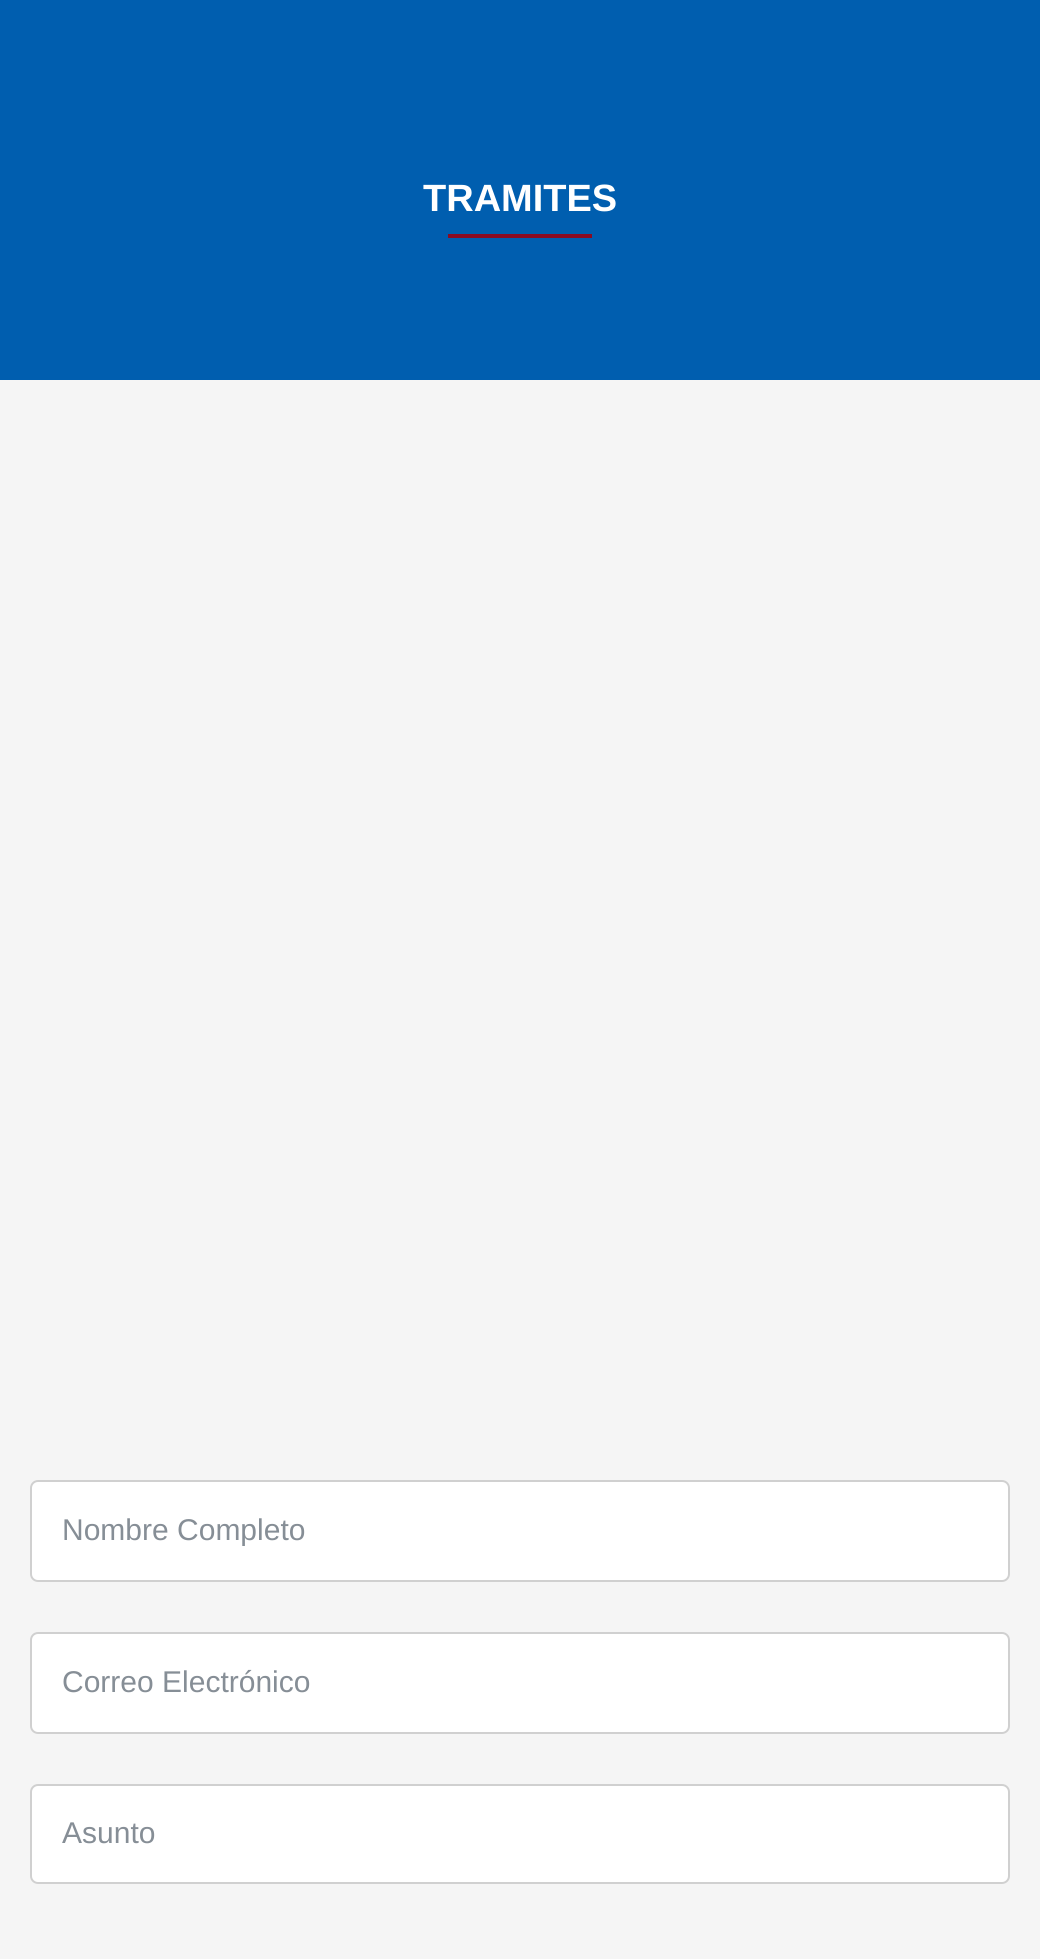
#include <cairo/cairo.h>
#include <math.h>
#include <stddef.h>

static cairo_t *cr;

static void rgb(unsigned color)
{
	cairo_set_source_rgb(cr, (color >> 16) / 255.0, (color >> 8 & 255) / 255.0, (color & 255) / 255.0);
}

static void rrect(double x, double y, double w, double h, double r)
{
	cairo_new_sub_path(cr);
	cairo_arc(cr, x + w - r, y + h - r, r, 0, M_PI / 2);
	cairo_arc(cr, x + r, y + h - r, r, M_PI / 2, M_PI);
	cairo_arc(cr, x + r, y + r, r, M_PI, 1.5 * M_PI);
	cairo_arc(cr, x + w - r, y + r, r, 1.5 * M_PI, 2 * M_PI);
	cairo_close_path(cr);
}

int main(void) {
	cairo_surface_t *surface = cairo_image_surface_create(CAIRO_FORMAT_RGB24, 1040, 1959);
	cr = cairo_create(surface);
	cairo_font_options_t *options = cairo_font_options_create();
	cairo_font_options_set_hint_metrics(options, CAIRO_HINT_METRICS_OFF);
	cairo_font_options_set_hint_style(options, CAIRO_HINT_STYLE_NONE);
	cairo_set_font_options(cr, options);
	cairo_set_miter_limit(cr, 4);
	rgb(0xf5f5f5);
	cairo_paint(cr);
	rgb(0x005eaf);
	cairo_rectangle(cr, 0, 0, 1040, 380);
	cairo_fill(cr);
	rgb(0x890b23);
	cairo_rectangle(cr, 448, 234, 144, 4);
	cairo_fill(cr);
	rgb(0xffffff);
	rrect(32, 1482, 976, 98, 6);
	cairo_fill(cr);
	rrect(31, 1481, 978, 100, 7);
	cairo_set_source_rgba(cr, 0, 0, 0, 0.15);
	cairo_stroke(cr);
	rgb(0xffffff);
	rrect(32, 1634, 976, 98, 6);
	cairo_fill(cr);
	rrect(31, 1633, 978, 100, 7);
	cairo_set_source_rgba(cr, 0, 0, 0, 0.15);
	cairo_stroke(cr);
	rgb(0xffffff);
	rrect(32, 1786, 976, 96, 6);
	cairo_fill(cr);
	rrect(31, 1785, 978, 98, 7);
	cairo_set_source_rgba(cr, 0, 0, 0, 0.15);
	cairo_stroke(cr);
	cairo_select_font_face(cr, "Liberation Sans", CAIRO_FONT_SLANT_NORMAL, CAIRO_FONT_WEIGHT_BOLD);
	cairo_set_font_size(cr, 38);
	rgb(0xffffff);
	cairo_move_to(cr, 423, 211);
	cairo_show_text(cr, "TRAMITES");
	cairo_save(cr);
	cairo_rectangle(cr, 62, 1512, 916, 34);
	cairo_clip(cr);
	cairo_select_font_face(cr, "Liberation Sans", CAIRO_FONT_SLANT_NORMAL, CAIRO_FONT_WEIGHT_NORMAL);
	cairo_set_font_size(cr, 30);
	rgb(0x868e96);
	cairo_move_to(cr, 62, 1540);
	cairo_show_text(cr, "Nombre Completo");
	cairo_restore(cr);
	cairo_select_font_face(cr, "Liberation Sans", CAIRO_FONT_SLANT_NORMAL, CAIRO_FONT_WEIGHT_NORMAL);
	cairo_set_font_size(cr, 30);
	rgb(0x868e96);
	cairo_move_to(cr, 62, 1692);
	cairo_show_text(cr, "Correo Electrónico");
	cairo_move_to(cr, 62, 1843);
	cairo_show_text(cr, "Asunto");
	cairo_surface_write_to_png(surface, "page.png");
	cairo_font_options_destroy(options);
	cairo_destroy(cr);
	cairo_surface_destroy(surface);
	return 0;
}
